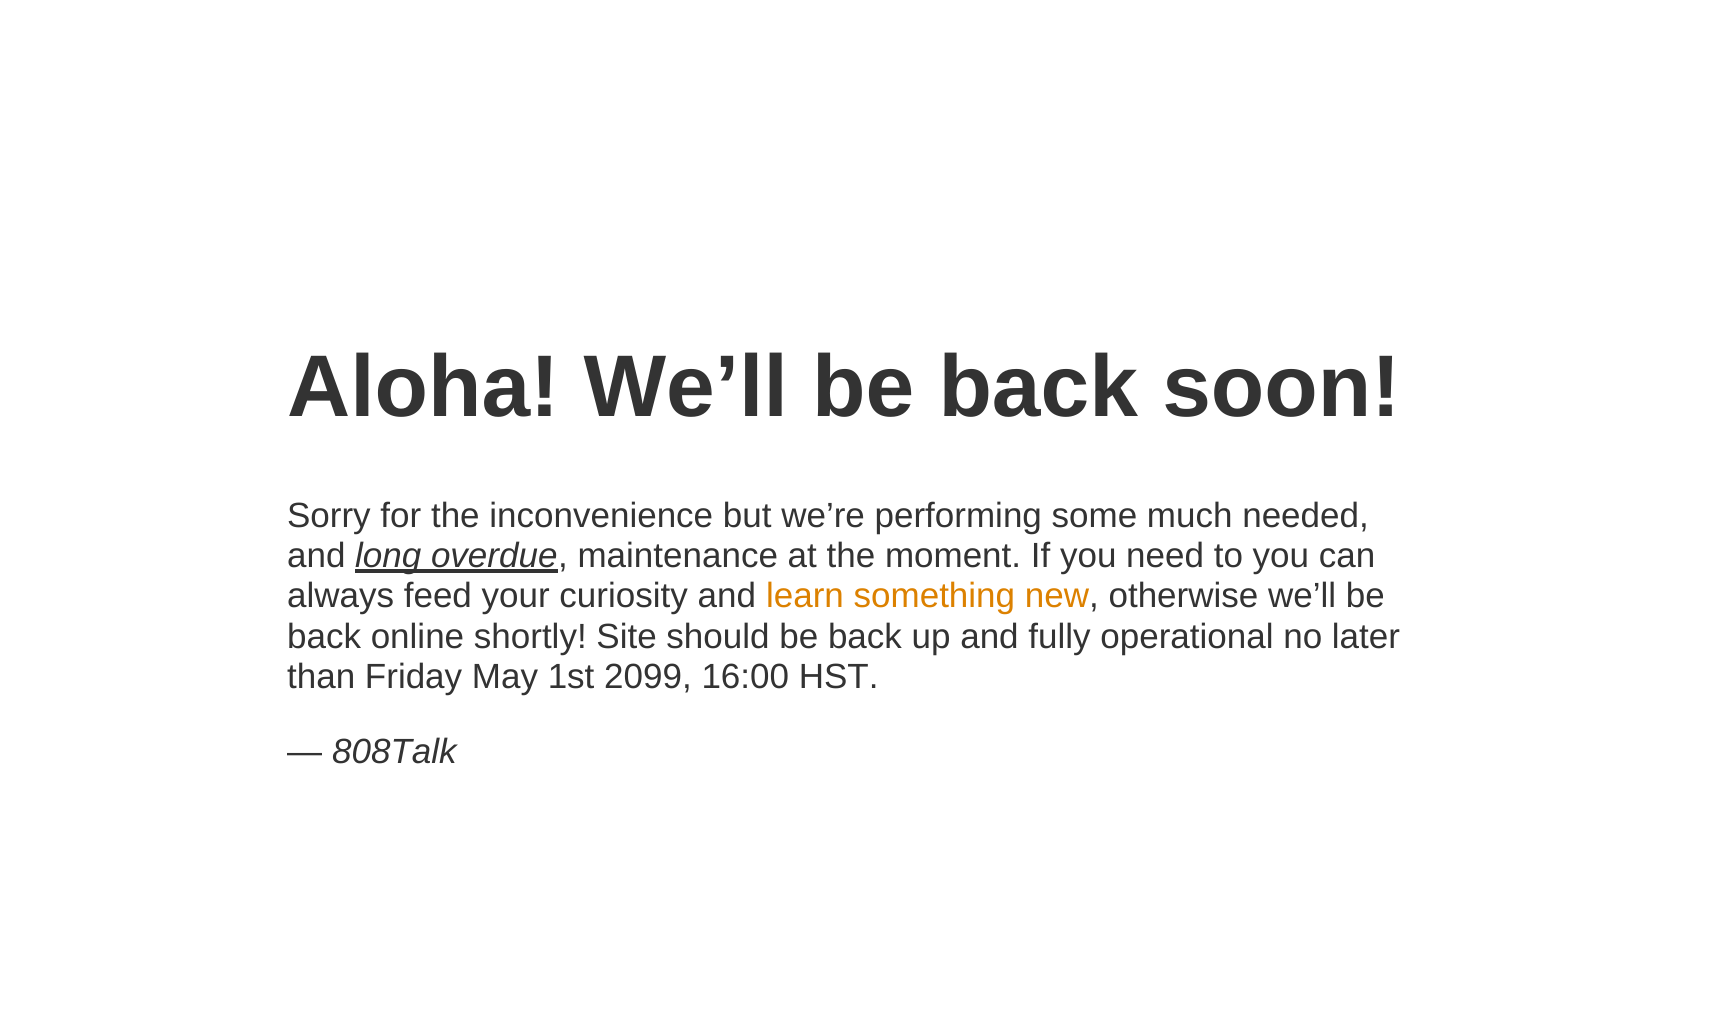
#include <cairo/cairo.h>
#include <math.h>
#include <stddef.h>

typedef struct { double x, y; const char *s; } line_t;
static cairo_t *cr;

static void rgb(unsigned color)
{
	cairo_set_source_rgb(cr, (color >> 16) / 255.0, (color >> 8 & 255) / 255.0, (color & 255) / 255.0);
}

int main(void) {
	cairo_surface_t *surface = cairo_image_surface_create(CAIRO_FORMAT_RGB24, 1711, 1009);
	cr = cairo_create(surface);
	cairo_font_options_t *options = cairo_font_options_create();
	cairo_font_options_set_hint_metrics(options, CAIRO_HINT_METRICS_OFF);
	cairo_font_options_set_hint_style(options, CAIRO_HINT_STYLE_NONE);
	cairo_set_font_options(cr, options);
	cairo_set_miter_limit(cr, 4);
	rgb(0xffffff);
	cairo_paint(cr);
	rgb(0x333333);
	cairo_rectangle(cr, 355, 569, 203, 4);
	cairo_fill(cr);
	cairo_select_font_face(cr, "Liberation Sans", CAIRO_FONT_SLANT_NORMAL, CAIRO_FONT_WEIGHT_BOLD);
	cairo_set_font_size(cr, 87.5);
	cairo_move_to(cr, 287, 416);
	cairo_show_text(cr, "Aloha! We’ll be back soon!");
	cairo_select_font_face(cr, "Liberation Sans", CAIRO_FONT_SLANT_NORMAL, CAIRO_FONT_WEIGHT_NORMAL);
	cairo_set_font_size(cr, 35);
	cairo_move_to(cr, 287, 527);
	cairo_show_text(cr, "Sorry for the inconvenience but we’re performing some much needed,");
	cairo_move_to(cr, 287, 567);
	cairo_show_text(cr, "and");
	cairo_select_font_face(cr, "Liberation Sans", CAIRO_FONT_SLANT_ITALIC, CAIRO_FONT_WEIGHT_NORMAL);
	cairo_move_to(cr, 355, 567);
	cairo_show_text(cr, "long overdue");
	cairo_select_font_face(cr, "Liberation Sans", CAIRO_FONT_SLANT_NORMAL, CAIRO_FONT_WEIGHT_NORMAL);
	cairo_move_to(cr, 558, 567);
	cairo_show_text(cr, ", maintenance at the moment. If you need to you can");
	cairo_move_to(cr, 287, 607);
	cairo_show_text(cr, "always feed your curiosity and");
	rgb(0xdc8100);
	cairo_move_to(cr, 766, 607);
	cairo_show_text(cr, "learn something new");
	rgb(0x333333);
	{
		static const line_t items[] = {
			{1089, 607, ", otherwise we’ll be"},
			{287, 648, "back online shortly! Site should be back up and fully operational no later"},
			{287, 688, "than Friday May 1st 2099, 16:00 HST."},
			{287, 763, "—"},
		};
		for (size_t i = 0; i < sizeof items / sizeof *items; i++) {
			cairo_move_to(cr, items[i].x, items[i].y);
			cairo_show_text(cr, items[i].s);
		}
	}
	cairo_select_font_face(cr, "Liberation Sans", CAIRO_FONT_SLANT_ITALIC, CAIRO_FONT_WEIGHT_NORMAL);
	cairo_move_to(cr, 332, 763);
	cairo_show_text(cr, "808Talk");
	cairo_surface_write_to_png(surface, "page.png");
	cairo_font_options_destroy(options);
	cairo_destroy(cr);
	cairo_surface_destroy(surface);
	return 0;
}
